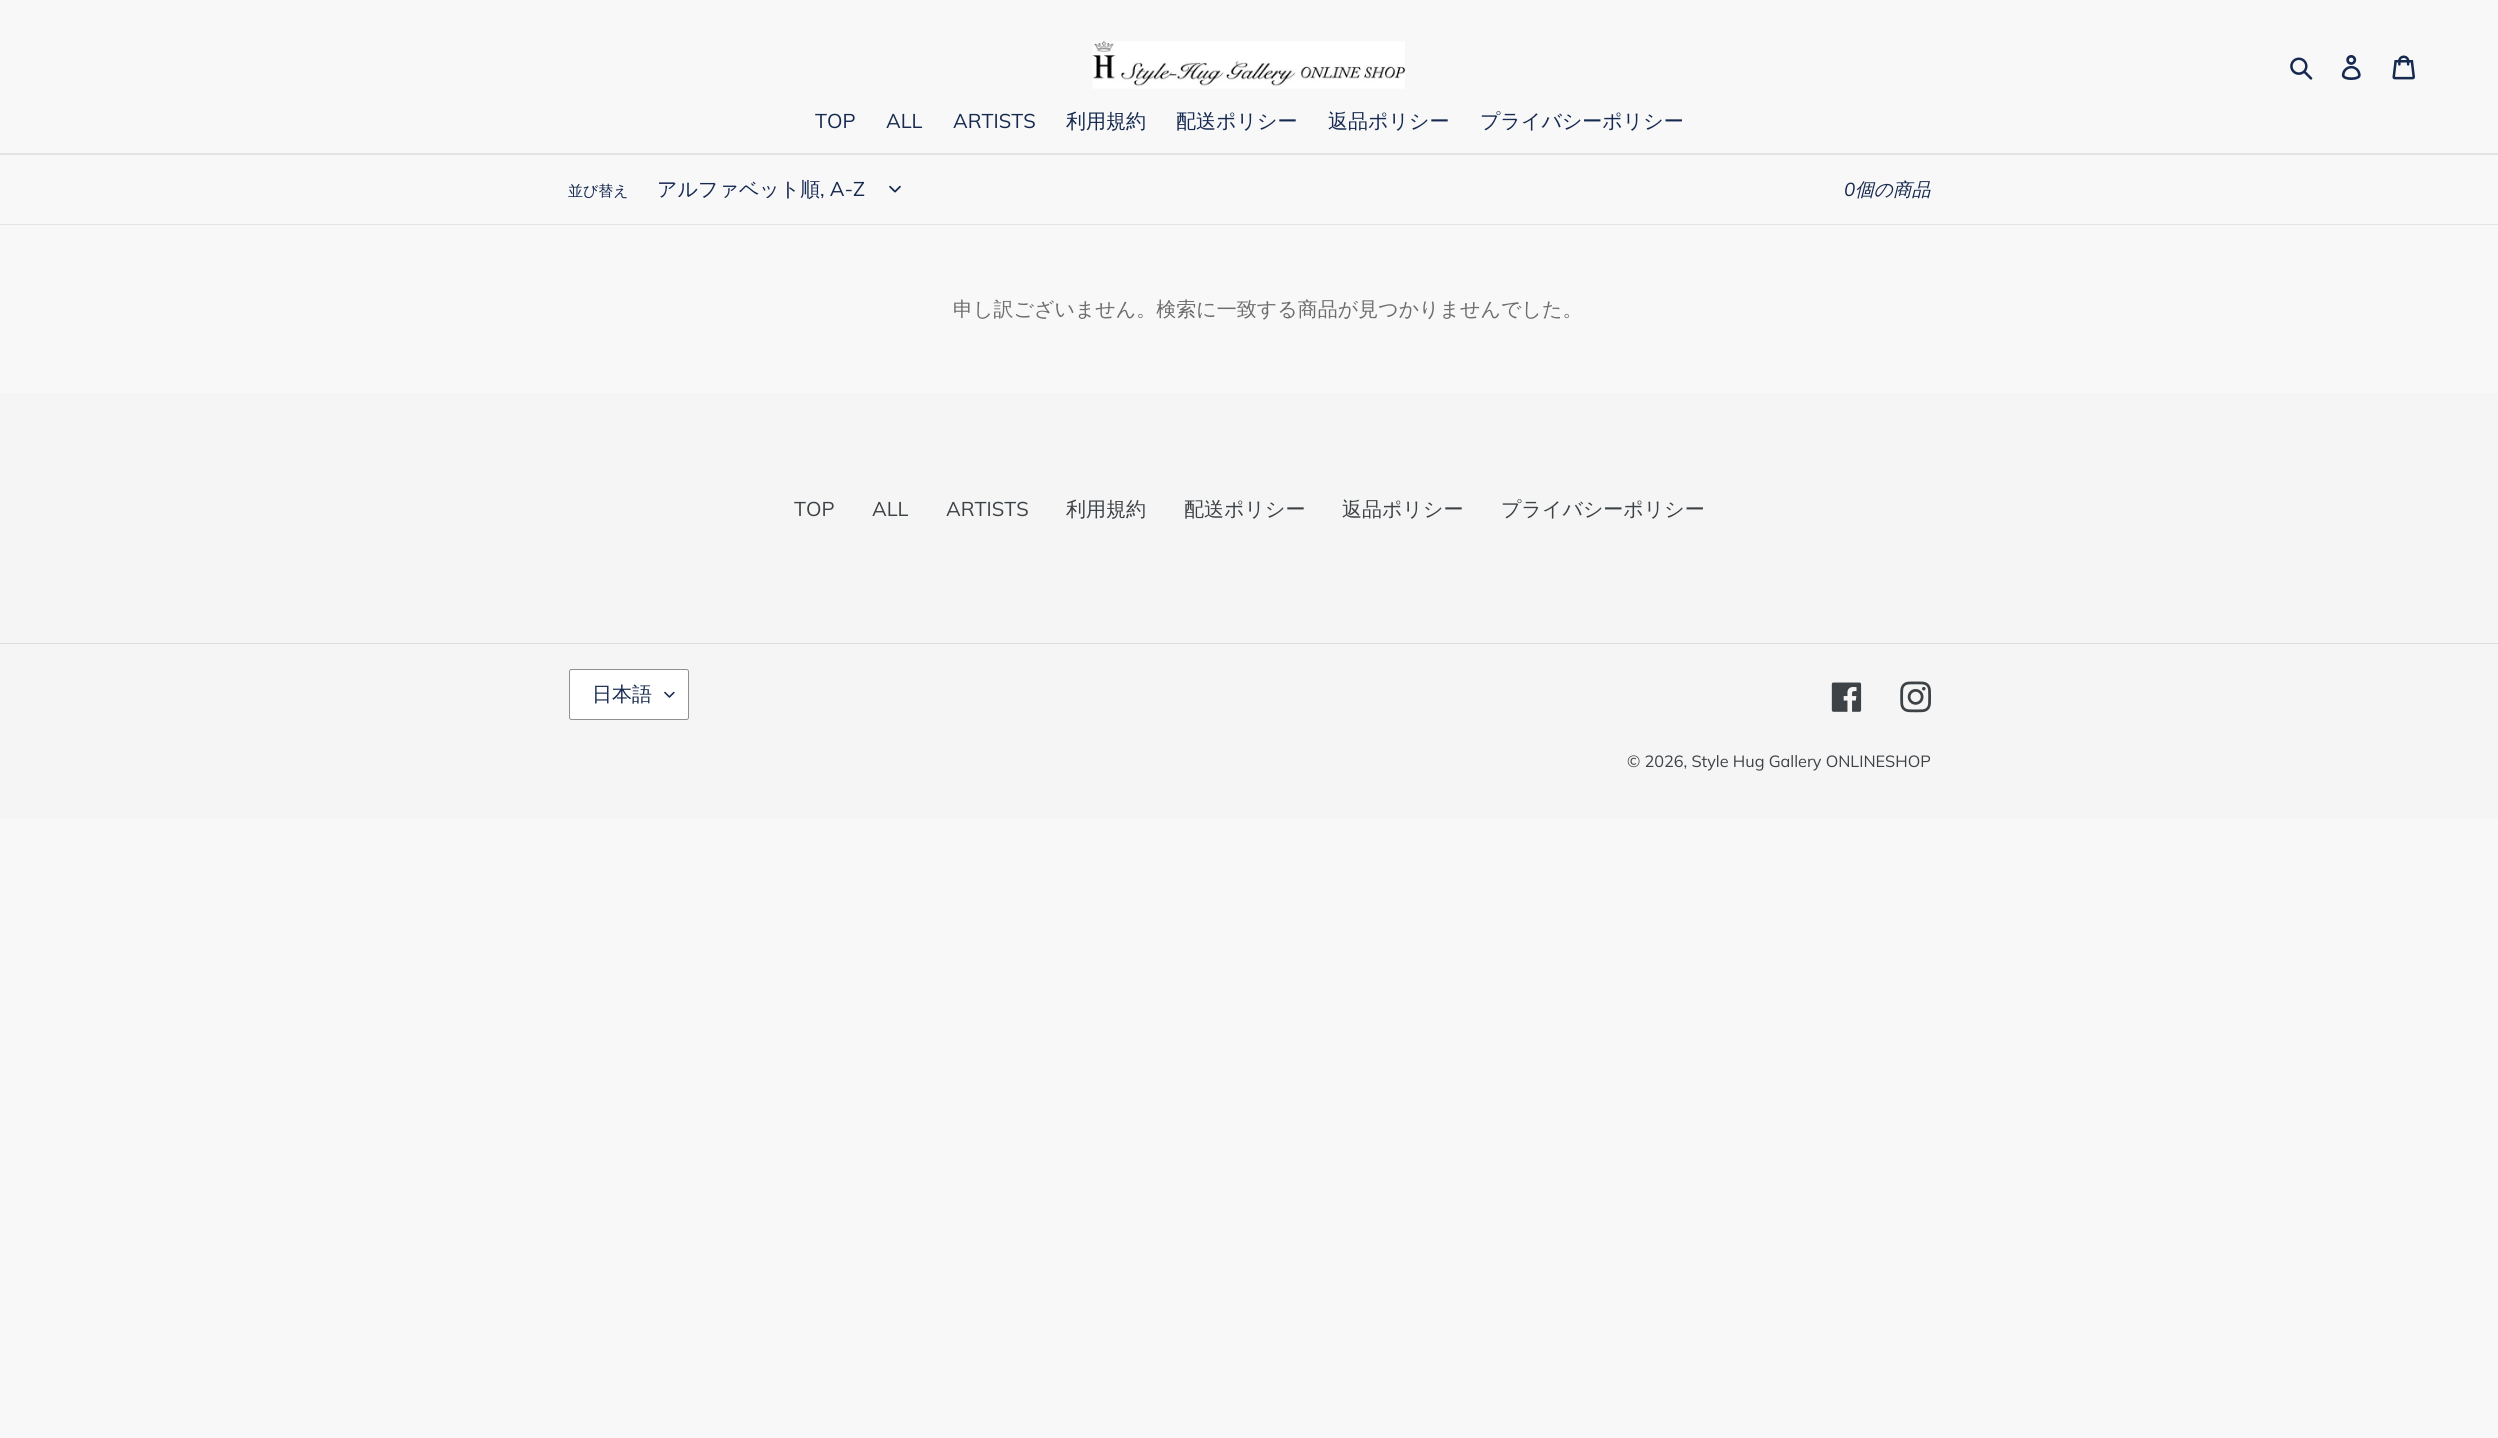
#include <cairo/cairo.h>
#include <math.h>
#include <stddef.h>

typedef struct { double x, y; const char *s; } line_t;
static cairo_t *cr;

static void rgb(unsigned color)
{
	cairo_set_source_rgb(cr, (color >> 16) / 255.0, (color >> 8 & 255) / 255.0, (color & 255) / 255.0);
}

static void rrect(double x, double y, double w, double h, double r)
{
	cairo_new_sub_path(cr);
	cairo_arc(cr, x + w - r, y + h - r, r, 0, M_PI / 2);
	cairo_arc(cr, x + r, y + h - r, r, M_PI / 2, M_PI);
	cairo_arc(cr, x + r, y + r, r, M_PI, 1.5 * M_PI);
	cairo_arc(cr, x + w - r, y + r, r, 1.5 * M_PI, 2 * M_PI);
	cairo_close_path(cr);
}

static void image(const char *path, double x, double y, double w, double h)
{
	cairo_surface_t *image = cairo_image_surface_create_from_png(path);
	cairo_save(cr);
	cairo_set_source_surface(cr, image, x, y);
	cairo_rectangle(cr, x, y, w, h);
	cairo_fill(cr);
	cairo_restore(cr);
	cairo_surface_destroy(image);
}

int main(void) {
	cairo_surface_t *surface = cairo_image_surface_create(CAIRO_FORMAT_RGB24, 2498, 1438);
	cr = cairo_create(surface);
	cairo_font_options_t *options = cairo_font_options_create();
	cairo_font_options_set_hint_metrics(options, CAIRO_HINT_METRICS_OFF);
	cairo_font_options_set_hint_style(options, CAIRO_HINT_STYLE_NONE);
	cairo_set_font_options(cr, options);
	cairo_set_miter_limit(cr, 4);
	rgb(0xf8f8f8);
	cairo_paint(cr);
	image("img/1.png", 1092, 41, 313, 48);
	image("img/2.png", 2290, 57, 23, 23);
	image("img/3.png", 2341, 55, 20, 25);
	image("img/4.png", 2392, 55, 23, 25);
	rgb(0xe4e4e4);
	cairo_rectangle(cr, 0, 153, 2498, 2);
	cairo_fill(cr);
	cairo_rectangle(cr, 0, 224, 2498, 1);
	cairo_fill(cr);
	image("img/5.png", 889, 185, 12, 8);
	rgb(0xf5f5f5);
	cairo_rectangle(cr, 0, 393, 2498, 426);
	cairo_fill(cr);
	rgb(0xdcdcdc);
	cairo_rectangle(cr, 0, 643, 2498, 1);
	cairo_fill(cr);
	rgb(0xffffff);
	rrect(569, 669, 120, 51, 2.5);
	cairo_fill(cr);
	image("img/6.png", 664, 691, 11, 7);
	rrect(569.5, 669.5, 119, 50, 2);
	rgb(0x909090);
	cairo_set_line_width(cr, 1);
	cairo_stroke(cr);
	image("img/7.png", 1831, 682, 31, 30);
	image("img/8.png", 1900, 681, 31, 32);
	cairo_select_font_face(cr, "Muli", CAIRO_FONT_SLANT_NORMAL, CAIRO_FONT_WEIGHT_NORMAL);
	cairo_set_font_size(cr, 20);
	rgb(0x162950);
	{
		static const line_t items[] = {
			{815, 128, "TOP"},
			{886, 128, "ALL"},
			{953, 128, "ARTISTS"},
		};
		for (size_t i = 0; i < sizeof items / sizeof *items; i++) {
			cairo_move_to(cr, items[i].x, items[i].y);
			cairo_show_text(cr, items[i].s);
		}
	}
	cairo_select_font_face(cr, "WenQuanYi Zen Hei Medium", CAIRO_FONT_SLANT_NORMAL, CAIRO_FONT_WEIGHT_NORMAL);
	{
		static const line_t items[] = {
			{1066, 128, "利用規約"},
			{1176, 128, "配送ポリシー"},
			{1328, 128, "返品ポリシー"},
			{1480, 128, "プライバシーポリシー"},
		};
		for (size_t i = 0; i < sizeof items / sizeof *items; i++) {
			cairo_move_to(cr, items[i].x, items[i].y);
			cairo_show_text(cr, items[i].s);
		}
	}
	cairo_set_font_size(cr, 15);
	cairo_move_to(cr, 568, 196);
	cairo_show_text(cr, "並び替え");
	cairo_set_font_size(cr, 20);
	cairo_move_to(cr, 657, 196);
	cairo_show_text(cr, "アルファベット順");
	cairo_select_font_face(cr, "Muli", CAIRO_FONT_SLANT_NORMAL, CAIRO_FONT_WEIGHT_NORMAL);
	cairo_move_to(cr, 820, 196);
	cairo_show_text(cr, ", A-Z");
	cairo_select_font_face(cr, "Muli", CAIRO_FONT_SLANT_ITALIC, CAIRO_FONT_WEIGHT_NORMAL);
	cairo_set_font_size(cr, 18.75);
	cairo_move_to(cr, 1844, 196);
	cairo_show_text(cr, "0");
	cairo_select_font_face(cr, "WenQuanYi Zen Hei Medium", CAIRO_FONT_SLANT_ITALIC, CAIRO_FONT_WEIGHT_NORMAL);
	cairo_move_to(cr, 1855, 196);
	cairo_show_text(cr, "個の商品");
	cairo_select_font_face(cr, "WenQuanYi Zen Hei Medium", CAIRO_FONT_SLANT_NORMAL, CAIRO_FONT_WEIGHT_NORMAL);
	cairo_set_font_size(cr, 20);
	rgb(0x6d6d6d);
	cairo_move_to(cr, 953, 316);
	cairo_show_text(cr, "申し訳ございません。検索に一致する商品が見つかりませんでした。");
	cairo_select_font_face(cr, "Muli", CAIRO_FONT_SLANT_NORMAL, CAIRO_FONT_WEIGHT_NORMAL);
	rgb(0x3d4246);
	{
		static const line_t items[] = {
			{794, 516, "TOP"},
			{872, 516, "ALL"},
			{946, 516, "ARTISTS"},
		};
		for (size_t i = 0; i < sizeof items / sizeof *items; i++) {
			cairo_move_to(cr, items[i].x, items[i].y);
			cairo_show_text(cr, items[i].s);
		}
	}
	cairo_select_font_face(cr, "WenQuanYi Zen Hei Medium", CAIRO_FONT_SLANT_NORMAL, CAIRO_FONT_WEIGHT_NORMAL);
	{
		static const line_t items[] = {
			{1066, 516, "利用規約"},
			{1184, 516, "配送ポリシー"},
			{1342, 516, "返品ポリシー"},
			{1501, 516, "プライバシーポリシー"},
		};
		for (size_t i = 0; i < sizeof items / sizeof *items; i++) {
			cairo_move_to(cr, items[i].x, items[i].y);
			cairo_show_text(cr, items[i].s);
		}
	}
	rgb(0x162950);
	cairo_move_to(cr, 592, 701);
	cairo_show_text(cr, "日本語");
	cairo_select_font_face(cr, "Muli", CAIRO_FONT_SLANT_NORMAL, CAIRO_FONT_WEIGHT_NORMAL);
	cairo_set_font_size(cr, 16.25);
	rgb(0x3d4246);
	cairo_move_to(cr, 1627, 767);
	cairo_show_text(cr, "© 2026, Style Hug Gallery ONLINESHOP");
	cairo_surface_write_to_png(surface, "page.png");
	cairo_font_options_destroy(options);
	cairo_destroy(cr);
	cairo_surface_destroy(surface);
	return 0;
}
